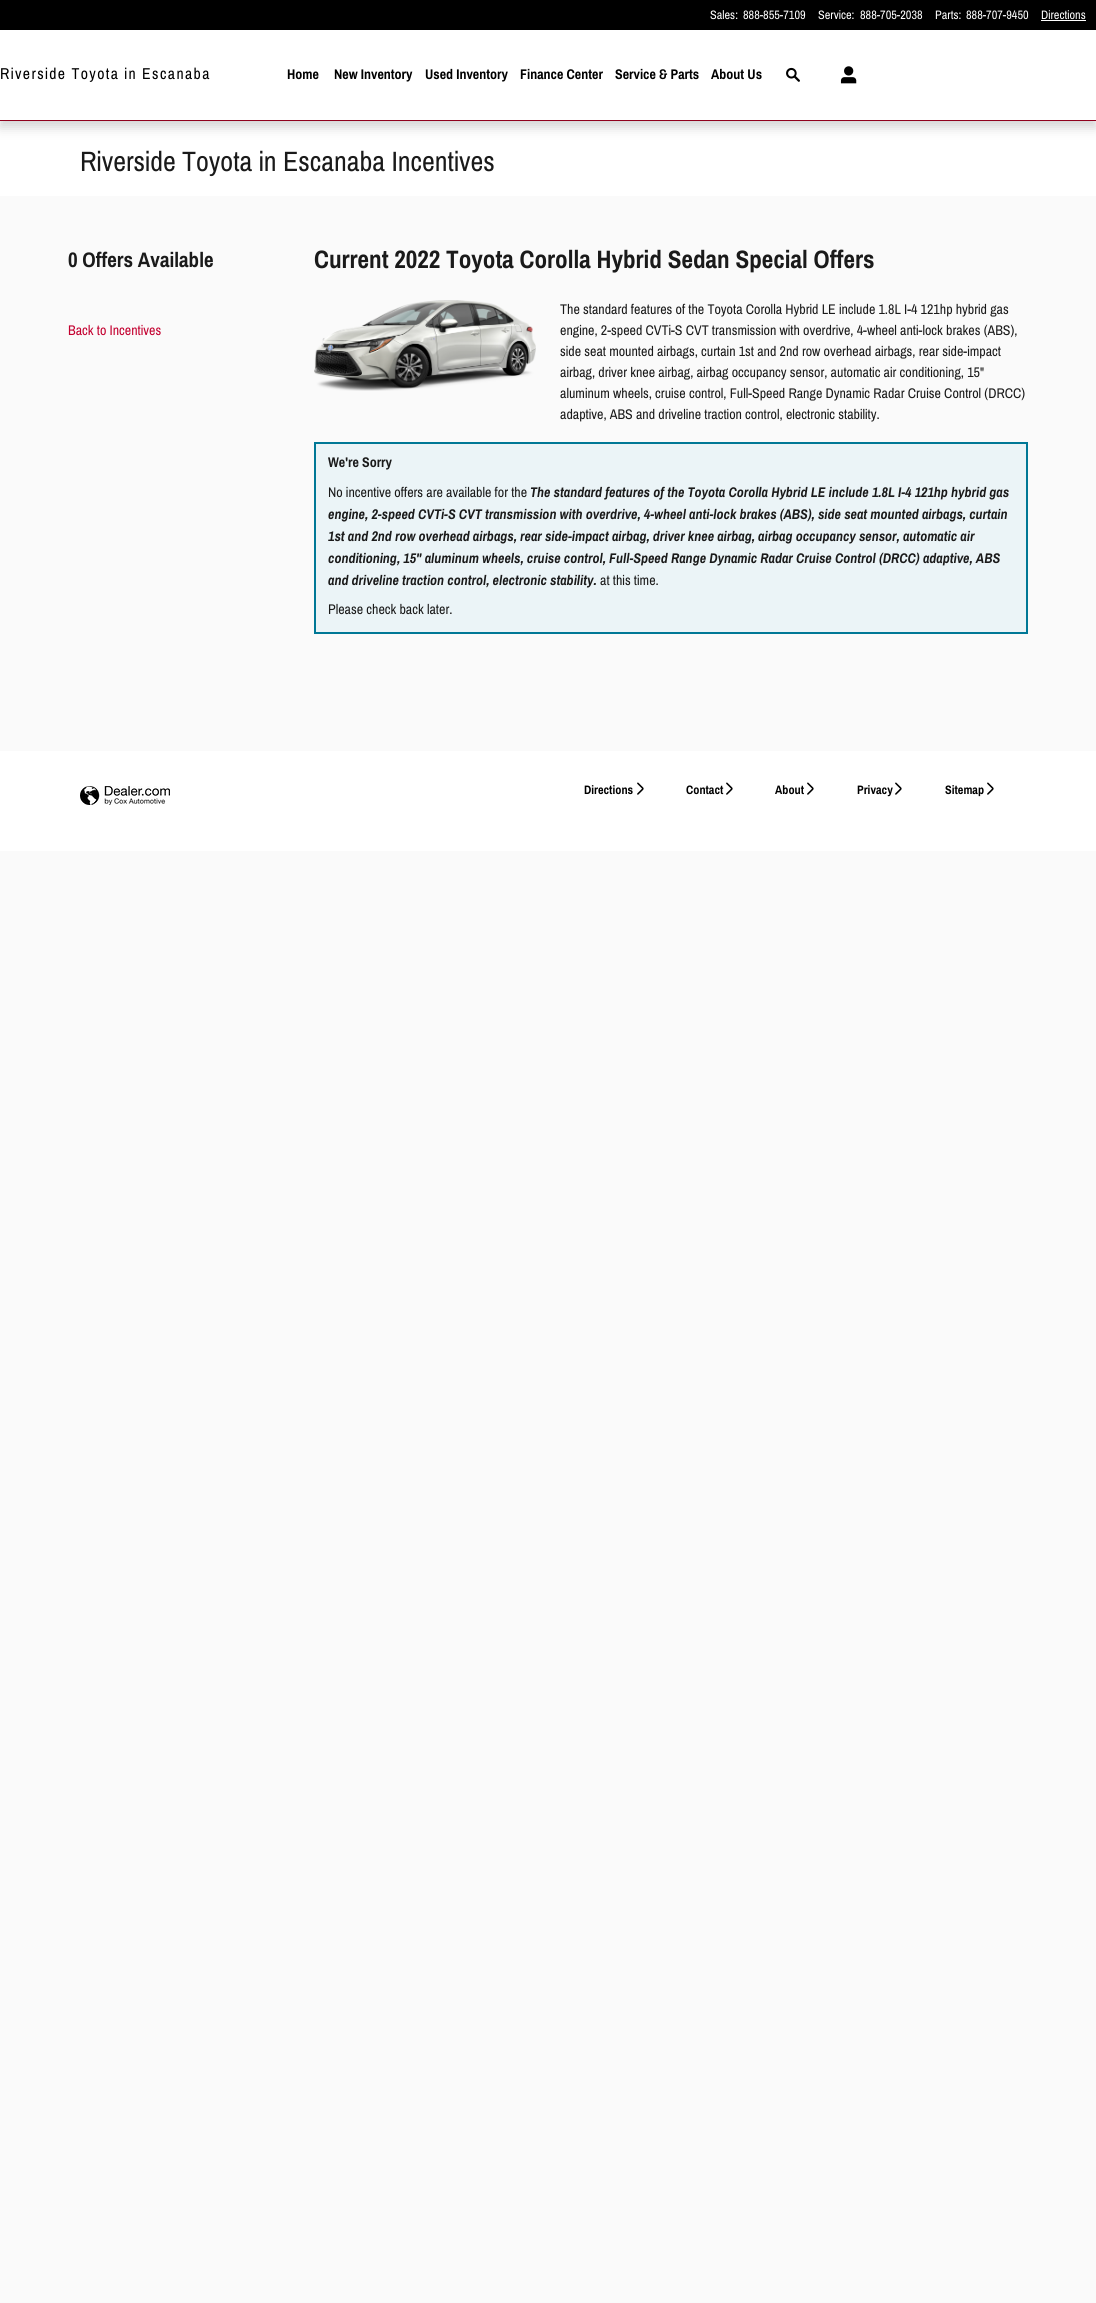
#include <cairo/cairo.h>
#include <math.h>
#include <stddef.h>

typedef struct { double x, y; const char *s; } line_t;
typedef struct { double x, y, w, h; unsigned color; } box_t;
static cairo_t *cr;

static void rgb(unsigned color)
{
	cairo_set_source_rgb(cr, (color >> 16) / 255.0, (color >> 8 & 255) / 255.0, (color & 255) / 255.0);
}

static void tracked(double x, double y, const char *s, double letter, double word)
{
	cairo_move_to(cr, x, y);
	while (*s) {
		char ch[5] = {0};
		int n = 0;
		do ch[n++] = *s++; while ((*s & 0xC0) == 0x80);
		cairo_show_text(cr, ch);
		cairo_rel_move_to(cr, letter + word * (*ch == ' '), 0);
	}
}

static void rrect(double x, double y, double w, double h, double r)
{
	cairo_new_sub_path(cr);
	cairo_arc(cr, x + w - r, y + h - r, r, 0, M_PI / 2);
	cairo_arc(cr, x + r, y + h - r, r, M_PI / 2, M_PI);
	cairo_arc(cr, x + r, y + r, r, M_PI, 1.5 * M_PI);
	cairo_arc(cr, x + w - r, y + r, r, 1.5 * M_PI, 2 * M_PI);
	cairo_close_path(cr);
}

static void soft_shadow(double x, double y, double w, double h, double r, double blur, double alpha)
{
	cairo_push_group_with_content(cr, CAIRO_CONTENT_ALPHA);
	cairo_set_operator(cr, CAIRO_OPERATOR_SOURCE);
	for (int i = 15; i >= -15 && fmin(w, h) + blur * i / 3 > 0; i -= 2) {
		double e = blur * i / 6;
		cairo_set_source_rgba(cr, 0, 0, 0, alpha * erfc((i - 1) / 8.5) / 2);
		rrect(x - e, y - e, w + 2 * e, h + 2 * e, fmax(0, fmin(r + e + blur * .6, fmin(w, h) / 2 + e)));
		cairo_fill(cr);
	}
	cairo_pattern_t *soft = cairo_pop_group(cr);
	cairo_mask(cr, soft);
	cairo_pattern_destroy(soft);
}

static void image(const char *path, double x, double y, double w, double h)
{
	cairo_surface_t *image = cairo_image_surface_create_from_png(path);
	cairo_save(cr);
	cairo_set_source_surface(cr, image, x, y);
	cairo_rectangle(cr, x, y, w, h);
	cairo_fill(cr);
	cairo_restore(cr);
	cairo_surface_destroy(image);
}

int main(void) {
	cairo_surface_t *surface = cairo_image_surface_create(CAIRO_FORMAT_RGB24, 1096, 2303);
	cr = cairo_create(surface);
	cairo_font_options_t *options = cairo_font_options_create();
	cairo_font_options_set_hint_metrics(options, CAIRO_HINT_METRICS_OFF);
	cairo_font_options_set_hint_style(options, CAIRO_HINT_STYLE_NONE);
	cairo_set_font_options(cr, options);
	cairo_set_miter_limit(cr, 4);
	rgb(0xfafafa);
	cairo_paint(cr);
	rgb(0xffffff);
	cairo_rectangle(cr, 0, 121, 1096, 75);
	cairo_fill(cr);
	rgb(0x000000);
	soft_shadow(0, 6, 1096, 121, 0, 6, 0.18);
	{
		static const box_t items[] = {
			{0, 30, 1096, 90, 0xffffff},
			{0, 120, 1096, 1, 0x90001d},
			{0, 0, 1096, 30, 0x000000},
			{1041, 20, 45, 1, 0xffffff},
		};
		for (size_t i = 0; i < sizeof items / sizeof *items; i++) {
			rgb(items[i].color);
			cairo_rectangle(cr, items[i].x, items[i].y, items[i].w, items[i].h);
			cairo_fill(cr);
		}
	}
	image("img/1.png", 786, 67, 14, 15);
	image("img/2.png", 840, 66, 17, 18);
	image("img/3.png", 314, 300, 222, 91);
	rgb(0xebf4f7);
	cairo_rectangle(cr, 315, 443, 712, 190);
	cairo_fill_preserve(cr);
	rgb(0x007896);
	cairo_stroke(cr);
	rgb(0xffffff);
	cairo_rectangle(cr, 0, 751, 1096, 100);
	cairo_fill(cr);
	image("img/4.png", 80, 786, 90, 19);
	image("img/5.png", 637, 782, 7, 13);
	image("img/5.png", 726, 782, 7, 13);
	image("img/5.png", 807, 782, 7, 13);
	image("img/5.png", 895, 782, 7, 13);
	image("img/5.png", 987, 782, 7, 13);
	cairo_select_font_face(cr, "Archivo Narrow", CAIRO_FONT_SLANT_NORMAL, CAIRO_FONT_WEIGHT_NORMAL);
	cairo_set_font_size(cr, 12.25);
	{
		static const line_t items[] = {
			{710, 19, "Sales:"},
			{743, 19, "888-855-7109"},
			{818, 19, "Service:"},
			{860, 19, "888-705-2038"},
			{935, 19, "Parts:"},
			{966, 19, "888-707-9450"},
			{1041, 19, "Directions"},
		};
		for (size_t i = 0; i < sizeof items / sizeof *items; i++) {
			cairo_move_to(cr, items[i].x, items[i].y);
			cairo_show_text(cr, items[i].s);
		}
	}
	cairo_set_font_size(cr, 15.75);
	rgb(0x000000);
	tracked(0, 79, "Riverside Toyota in Escanaba", 1.4, 0);
	cairo_select_font_face(cr, "Archivo Narrow", CAIRO_FONT_SLANT_NORMAL, CAIRO_FONT_WEIGHT_BOLD);
	cairo_set_font_size(cr, 14);
	{
		static const line_t items[] = {
			{287, 79, "Home"},
			{334, 79, "New Inventory"},
			{425, 79, "Used Inventory"},
			{520, 79, "Finance Center"},
			{615, 79, "Service & Parts"},
			{711, 79, "About Us"},
		};
		for (size_t i = 0; i < sizeof items / sizeof *items; i++) {
			cairo_move_to(cr, items[i].x, items[i].y);
			cairo_show_text(cr, items[i].s);
		}
	}
	cairo_select_font_face(cr, "Archivo Narrow", CAIRO_FONT_SLANT_NORMAL, CAIRO_FONT_WEIGHT_NORMAL);
	cairo_set_font_size(cr, 28);
	rgb(0x1a1a1a);
	cairo_move_to(cr, 80, 171);
	cairo_show_text(cr, "Riverside Toyota in Escanaba Incentives");
	cairo_select_font_face(cr, "Archivo Narrow", CAIRO_FONT_SLANT_NORMAL, CAIRO_FONT_WEIGHT_BOLD);
	cairo_set_font_size(cr, 21);
	cairo_move_to(cr, 68, 267);
	cairo_show_text(cr, "0 Offers Available");
	cairo_select_font_face(cr, "Archivo Narrow", CAIRO_FONT_SLANT_NORMAL, CAIRO_FONT_WEIGHT_NORMAL);
	cairo_set_font_size(cr, 14);
	rgb(0xc3002f);
	cairo_move_to(cr, 68, 335);
	cairo_show_text(cr, "Back to Incentives");
	cairo_select_font_face(cr, "Archivo Narrow", CAIRO_FONT_SLANT_NORMAL, CAIRO_FONT_WEIGHT_BOLD);
	cairo_set_font_size(cr, 25.2);
	rgb(0x1a1a1a);
	cairo_move_to(cr, 314, 268);
	cairo_show_text(cr, "Current 2022 Toyota Corolla Hybrid Sedan Special Offers");
	cairo_select_font_face(cr, "Archivo Narrow", CAIRO_FONT_SLANT_NORMAL, CAIRO_FONT_WEIGHT_NORMAL);
	cairo_set_font_size(cr, 14);
	{
		static const line_t items[] = {
			{560, 314, "The standard features of the Toyota Corolla Hybrid LE include 1.8L I-4 121hp hybrid gas"},
			{560, 335, "engine, 2-speed CVTi-S CVT transmission with overdrive, 4-wheel anti-lock brakes (ABS),"},
			{560, 356, "side seat mounted airbags, curtain 1st and 2nd row overhead airbags, rear side-impact"},
			{560, 377, "airbag, driver knee airbag, airbag occupancy sensor, automatic air conditioning, 15\""},
			{560, 398, "aluminum wheels, cruise control, Full-Speed Range Dynamic Radar Cruise Control (DRCC)"},
			{560, 419, "adaptive, ABS and driveline traction control, electronic stability."},
		};
		for (size_t i = 0; i < sizeof items / sizeof *items; i++) {
			cairo_move_to(cr, items[i].x, items[i].y);
			cairo_show_text(cr, items[i].s);
		}
	}
	cairo_select_font_face(cr, "Archivo Narrow", CAIRO_FONT_SLANT_NORMAL, CAIRO_FONT_WEIGHT_BOLD);
	cairo_move_to(cr, 328, 467);
	cairo_show_text(cr, "We're Sorry");
	cairo_select_font_face(cr, "Archivo Narrow", CAIRO_FONT_SLANT_NORMAL, CAIRO_FONT_WEIGHT_NORMAL);
	cairo_move_to(cr, 328, 497);
	cairo_show_text(cr, "No incentive offers are available for the");
	cairo_select_font_face(cr, "Archivo Narrow", CAIRO_FONT_SLANT_ITALIC, CAIRO_FONT_WEIGHT_BOLD);
	{
		static const line_t items[] = {
			{530, 497, "The standard features of the Toyota Corolla Hybrid LE include 1.8L I-4 121hp hybrid gas"},
			{328, 519, "engine, 2-speed CVTi-S CVT transmission with overdrive, 4-wheel anti-lock brakes (ABS), side seat mounted airbags, curtain"},
			{328, 541, "1st and 2nd row overhead airbags, rear side-impact airbag, driver knee airbag, airbag occupancy sensor, automatic air"},
			{328, 563, "conditioning, 15\" aluminum wheels, cruise control, Full-Speed Range Dynamic Radar Cruise Control (DRCC) adaptive, ABS"},
			{328, 585, "and driveline traction control, electronic stability."},
		};
		for (size_t i = 0; i < sizeof items / sizeof *items; i++) {
			cairo_move_to(cr, items[i].x, items[i].y);
			cairo_show_text(cr, items[i].s);
		}
	}
	cairo_select_font_face(cr, "Archivo Narrow", CAIRO_FONT_SLANT_NORMAL, CAIRO_FONT_WEIGHT_NORMAL);
	cairo_move_to(cr, 600, 585);
	cairo_show_text(cr, "at this time.");
	cairo_move_to(cr, 328, 614);
	cairo_show_text(cr, "Please check back later.");
	cairo_select_font_face(cr, "Archivo Narrow", CAIRO_FONT_SLANT_NORMAL, CAIRO_FONT_WEIGHT_BOLD);
	cairo_set_font_size(cr, 12.25);
	rgb(0x000000);
	{
		static const line_t items[] = {
			{584, 794, "Directions"},
			{686, 794, "Contact"},
			{775, 794, "About"},
			{857, 794, "Privacy"},
			{945, 794, "Sitemap"},
		};
		for (size_t i = 0; i < sizeof items / sizeof *items; i++) {
			cairo_move_to(cr, items[i].x, items[i].y);
			cairo_show_text(cr, items[i].s);
		}
	}
	cairo_surface_write_to_png(surface, "page.png");
	cairo_font_options_destroy(options);
	cairo_destroy(cr);
	cairo_surface_destroy(surface);
	return 0;
}
